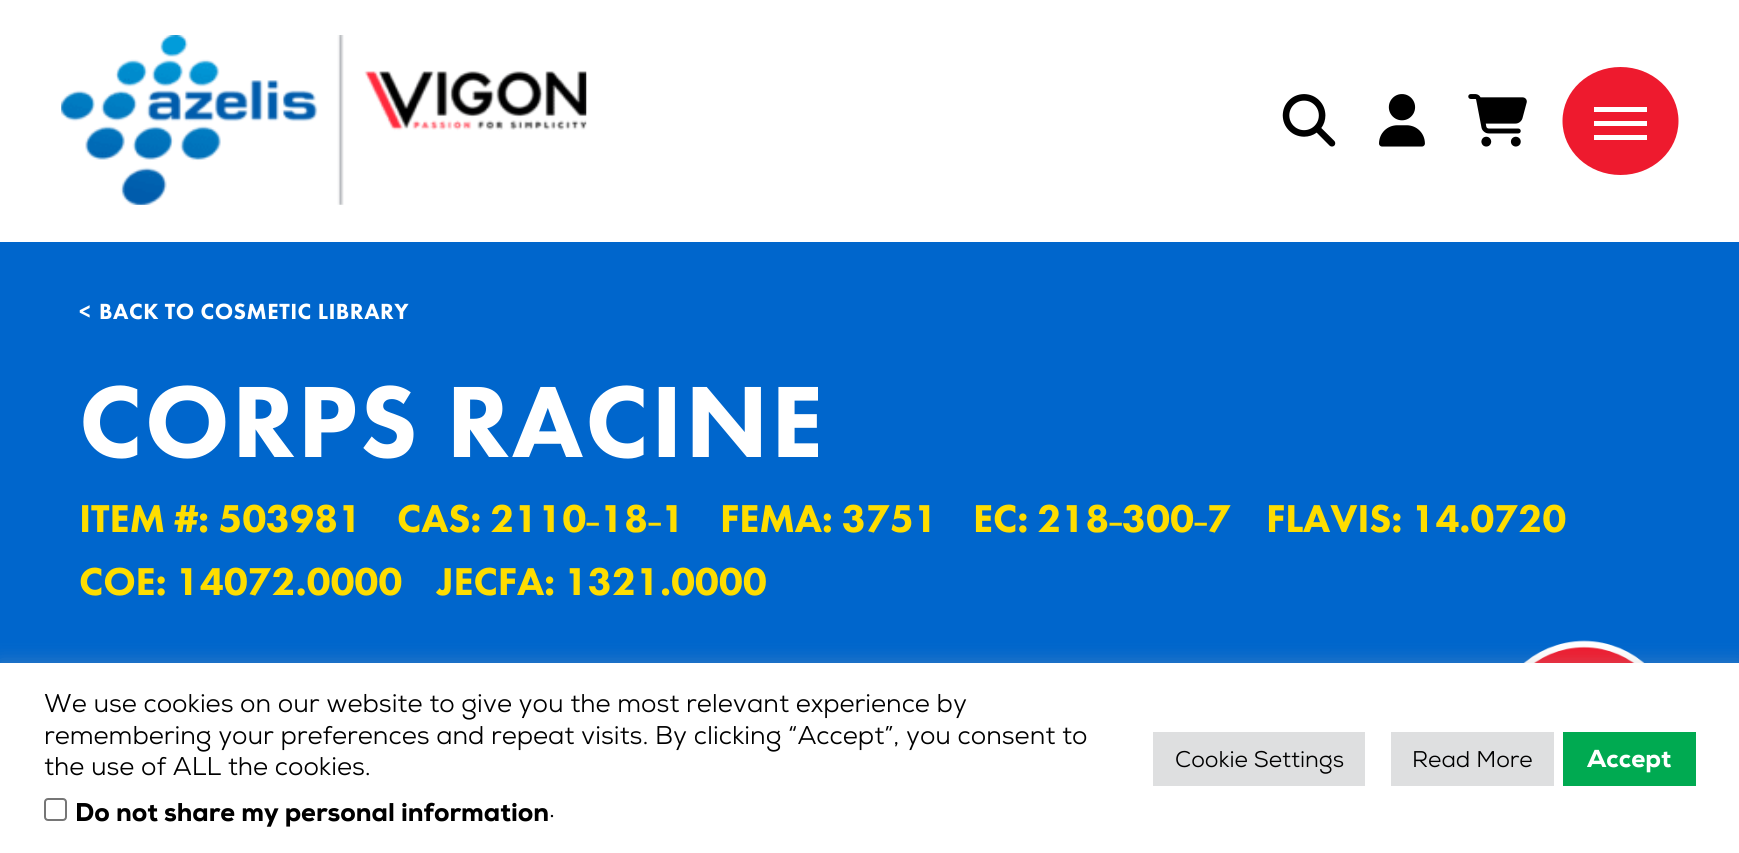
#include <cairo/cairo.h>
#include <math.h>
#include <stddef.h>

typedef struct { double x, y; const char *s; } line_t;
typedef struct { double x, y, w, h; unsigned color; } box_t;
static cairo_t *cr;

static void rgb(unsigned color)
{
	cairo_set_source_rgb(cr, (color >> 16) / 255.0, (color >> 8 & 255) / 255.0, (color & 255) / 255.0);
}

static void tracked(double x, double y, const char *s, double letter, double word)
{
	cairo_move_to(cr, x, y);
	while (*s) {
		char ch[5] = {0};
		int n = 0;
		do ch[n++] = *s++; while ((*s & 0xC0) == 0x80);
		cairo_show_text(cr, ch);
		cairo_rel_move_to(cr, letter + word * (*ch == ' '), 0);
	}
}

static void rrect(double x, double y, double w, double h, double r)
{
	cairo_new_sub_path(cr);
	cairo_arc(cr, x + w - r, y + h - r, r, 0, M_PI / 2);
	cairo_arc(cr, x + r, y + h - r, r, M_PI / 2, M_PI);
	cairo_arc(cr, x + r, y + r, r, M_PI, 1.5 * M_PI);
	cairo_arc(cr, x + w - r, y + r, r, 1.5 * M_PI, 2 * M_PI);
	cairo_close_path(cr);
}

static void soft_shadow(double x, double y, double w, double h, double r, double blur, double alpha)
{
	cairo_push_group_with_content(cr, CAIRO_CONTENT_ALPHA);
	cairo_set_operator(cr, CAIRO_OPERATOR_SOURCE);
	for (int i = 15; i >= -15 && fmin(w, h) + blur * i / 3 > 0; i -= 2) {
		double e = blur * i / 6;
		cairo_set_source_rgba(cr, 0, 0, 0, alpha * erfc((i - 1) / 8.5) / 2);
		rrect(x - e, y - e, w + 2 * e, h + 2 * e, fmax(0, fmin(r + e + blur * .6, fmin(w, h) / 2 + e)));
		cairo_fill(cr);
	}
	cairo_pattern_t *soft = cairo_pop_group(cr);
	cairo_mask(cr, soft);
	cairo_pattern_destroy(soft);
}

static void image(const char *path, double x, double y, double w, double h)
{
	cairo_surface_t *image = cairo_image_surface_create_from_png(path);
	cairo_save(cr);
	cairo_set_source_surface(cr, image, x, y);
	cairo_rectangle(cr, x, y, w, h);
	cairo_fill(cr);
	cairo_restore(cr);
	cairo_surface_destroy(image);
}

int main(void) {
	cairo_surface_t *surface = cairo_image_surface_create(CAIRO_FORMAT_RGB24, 1739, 853);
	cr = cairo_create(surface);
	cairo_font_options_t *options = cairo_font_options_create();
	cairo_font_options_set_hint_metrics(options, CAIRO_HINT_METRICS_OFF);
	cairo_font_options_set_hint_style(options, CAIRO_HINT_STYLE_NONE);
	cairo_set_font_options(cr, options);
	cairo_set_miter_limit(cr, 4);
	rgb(0xffffff);
	cairo_paint(cr);
	image("img/1.png", 61, 35, 526, 170);
	image("img/2.png", 1282, 94, 54, 53);
	image("img/3.png", 1379, 94, 46, 53);
	image("img/4.png", 1468, 94, 59, 53);
	rgb(0xee1a2e);
	cairo_new_path(cr);
	cairo_move_to(cr, 1620.5, 67);
	cairo_curve_to(cr, 1652.5, 67, 1678.5, 91, 1678.5, 121);
	cairo_curve_to(cr, 1678.5, 151, 1652.5, 175, 1620.5, 175);
	cairo_curve_to(cr, 1588.5, 175, 1562.5, 151, 1562.5, 121);
	cairo_curve_to(cr, 1562.5, 91, 1588.5, 67, 1620.5, 67);
	cairo_close_path(cr);
	cairo_fill(cr);
	{
		static const box_t items[] = {
			{1594, 121, 53, 5, 0xffffff},
			{1594, 107, 53, 5, 0xffffff},
			{1594, 135, 53, 5, 0xffffff},
			{0, 242, 1739, 421, 0x0066cc},
		};
		for (size_t i = 0; i < sizeof items / sizeof *items; i++) {
			rgb(items[i].color);
			cairo_rectangle(cr, items[i].x, items[i].y, items[i].w, items[i].h);
			cairo_fill(cr);
		}
	}
	image("img/5.png", 1523, 640, 122, 23);
	rgb(0xacabab);
	soft_shadow(0, 662, 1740, 190, 0, 9, 0.3);
	rgb(0xffffff);
	cairo_rectangle(cr, 0, 663, 1739, 190);
	cairo_fill(cr);
	rrect(45, 799, 21, 21, 3);
	rgb(0x767676);
	cairo_stroke(cr);
	{
		static const box_t items[] = {
			{1153, 732, 212, 54, 0xdedfe0},
			{1391, 732, 163, 54, 0xdedfe0},
			{1563, 732, 133, 54, 0x00aa51},
		};
		for (size_t i = 0; i < sizeof items / sizeof *items; i++) {
			rgb(items[i].color);
			cairo_rectangle(cr, items[i].x, items[i].y, items[i].w, items[i].h);
			cairo_fill(cr);
		}
	}
	cairo_select_font_face(cr, "Futura PT Black", CAIRO_FONT_SLANT_NORMAL, CAIRO_FONT_WEIGHT_NORMAL);
	cairo_set_font_size(cr, 22.75);
	rgb(0xffffff);
	tracked(79, 319, "<", 0.5, 0);
	tracked(99, 319, "BACK TO COSMETIC LIBRARY", 0.5, 0);
	cairo_set_font_size(cr, 105);
	tracked(79, 457, "CORPS RACINE", 2.1, 0);
	cairo_set_font_size(cr, 40.25);
	rgb(0xfedd00);
	tracked(79, 532, "ITEM #: 503981", -0.2, 0);
	tracked(397, 532, "CAS: 2110", -0.2, 0);
	cairo_select_font_face(cr, "Liberation Serif", CAIRO_FONT_SLANT_NORMAL, CAIRO_FONT_WEIGHT_BOLD);
	tracked(586, 532, "˗", -0.2, 0);
	cairo_select_font_face(cr, "Futura PT Black", CAIRO_FONT_SLANT_NORMAL, CAIRO_FONT_WEIGHT_NORMAL);
	tracked(600, 532, "18", -0.2, 0);
	cairo_select_font_face(cr, "Liberation Serif", CAIRO_FONT_SLANT_NORMAL, CAIRO_FONT_WEIGHT_BOLD);
	tracked(648, 532, "˗", -0.2, 0);
	cairo_select_font_face(cr, "Futura PT Black", CAIRO_FONT_SLANT_NORMAL, CAIRO_FONT_WEIGHT_NORMAL);
	{
		static const line_t items[] = {
			{661, 532, "1"},
			{720, 532, "FEMA: 3751"},
			{973, 532, "EC: 218"},
		};
		for (size_t i = 0; i < sizeof items / sizeof *items; i++) {
			tracked(items[i].x, items[i].y, items[i].s, -0.2, 0);
		}
	}
	cairo_select_font_face(cr, "Liberation Serif", CAIRO_FONT_SLANT_NORMAL, CAIRO_FONT_WEIGHT_BOLD);
	tracked(1109, 532, "˗", -0.2, 0);
	cairo_select_font_face(cr, "Futura PT Black", CAIRO_FONT_SLANT_NORMAL, CAIRO_FONT_WEIGHT_NORMAL);
	tracked(1122, 532, "300", -0.2, 0);
	cairo_select_font_face(cr, "Liberation Serif", CAIRO_FONT_SLANT_NORMAL, CAIRO_FONT_WEIGHT_BOLD);
	tracked(1194, 532, "˗", -0.2, 0);
	cairo_select_font_face(cr, "Futura PT Black", CAIRO_FONT_SLANT_NORMAL, CAIRO_FONT_WEIGHT_NORMAL);
	{
		static const line_t items[] = {
			{1207, 532, "7"},
			{1266, 532, "FLAVIS: 14.0720"},
			{79, 595, "COE: 14072.0000"},
			{437, 595, "JECFA: 1321.0000"},
		};
		for (size_t i = 0; i < sizeof items / sizeof *items; i++) {
			tracked(items[i].x, items[i].y, items[i].s, -0.2, 0);
		}
	}
	cairo_select_font_face(cr, "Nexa", CAIRO_FONT_SLANT_NORMAL, CAIRO_FONT_WEIGHT_NORMAL);
	cairo_set_font_size(cr, 25.65);
	rgb(0x000000);
	{
		static const line_t items[] = {
			{44, 712, "We use cookies on our website to give you the most relevant experience by"},
			{44, 744, "remembering your preferences and repeat visits. By clicking “Accept”, you consent to"},
			{44, 775, "the use of ALL the cookies."},
		};
		for (size_t i = 0; i < sizeof items / sizeof *items; i++) {
			cairo_move_to(cr, items[i].x, items[i].y);
			cairo_show_text(cr, items[i].s);
		}
	}
	cairo_select_font_face(cr, "Nexa Black", CAIRO_FONT_SLANT_NORMAL, CAIRO_FONT_WEIGHT_NORMAL);
	cairo_move_to(cr, 75, 821);
	cairo_show_text(cr, "Do not share my personal information");
	cairo_select_font_face(cr, "Nexa", CAIRO_FONT_SLANT_NORMAL, CAIRO_FONT_WEIGHT_NORMAL);
	cairo_move_to(cr, 549, 817);
	cairo_show_text(cr, ".");
	cairo_set_font_size(cr, 22.75);
	cairo_move_to(cr, 1175, 767);
	cairo_show_text(cr, "Cookie Settings");
	cairo_move_to(cr, 1412, 767);
	cairo_show_text(cr, "Read More");
	cairo_select_font_face(cr, "Nexa Black", CAIRO_FONT_SLANT_NORMAL, CAIRO_FONT_WEIGHT_NORMAL);
	cairo_set_font_size(cr, 24.5);
	rgb(0xffffff);
	cairo_move_to(cr, 1587, 767);
	cairo_show_text(cr, "Accept");
	cairo_surface_write_to_png(surface, "page.png");
	cairo_font_options_destroy(options);
	cairo_destroy(cr);
	cairo_surface_destroy(surface);
	return 0;
}
